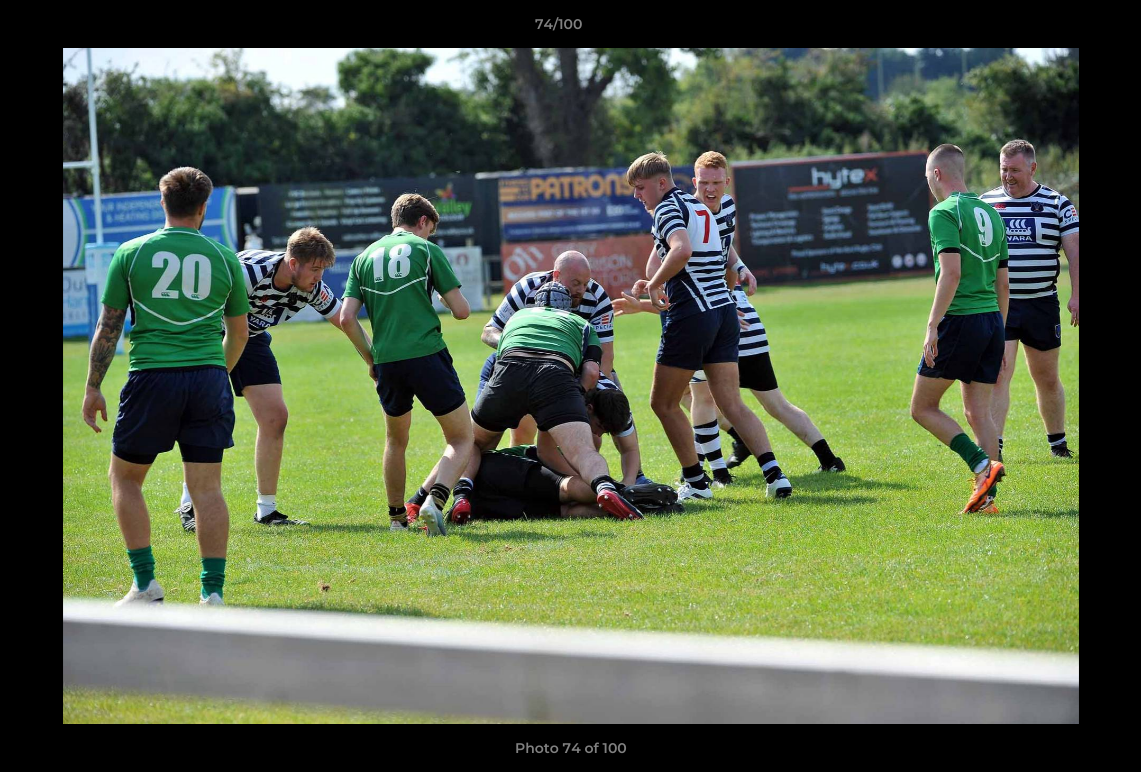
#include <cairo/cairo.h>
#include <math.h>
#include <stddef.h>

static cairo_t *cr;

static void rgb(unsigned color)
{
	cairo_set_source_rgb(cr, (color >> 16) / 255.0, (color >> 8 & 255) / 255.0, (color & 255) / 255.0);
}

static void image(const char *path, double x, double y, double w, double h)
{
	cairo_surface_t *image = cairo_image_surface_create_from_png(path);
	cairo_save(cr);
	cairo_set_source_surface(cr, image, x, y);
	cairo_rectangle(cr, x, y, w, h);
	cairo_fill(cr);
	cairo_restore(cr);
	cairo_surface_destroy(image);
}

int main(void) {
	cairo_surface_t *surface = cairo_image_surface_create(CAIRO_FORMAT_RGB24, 1141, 772);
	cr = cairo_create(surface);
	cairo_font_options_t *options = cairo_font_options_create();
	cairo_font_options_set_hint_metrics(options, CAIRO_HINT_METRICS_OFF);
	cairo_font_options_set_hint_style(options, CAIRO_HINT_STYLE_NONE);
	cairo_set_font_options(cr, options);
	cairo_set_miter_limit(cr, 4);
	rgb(0x000000);
	cairo_paint(cr);
	image("img/1.png", 63, 48, 1016, 676);
	cairo_select_font_face(cr, "Montserrat SemiBold", CAIRO_FONT_SLANT_NORMAL, CAIRO_FONT_WEIGHT_NORMAL);
	cairo_set_font_size(cr, 14);
	rgb(0x808080);
	cairo_move_to(cr, 535, 29);
	cairo_show_text(cr, "74/100");
	cairo_move_to(cr, 515, 753);
	cairo_show_text(cr, "Photo 74 of 100");
	cairo_surface_write_to_png(surface, "page.png");
	cairo_font_options_destroy(options);
	cairo_destroy(cr);
	cairo_surface_destroy(surface);
	return 0;
}
